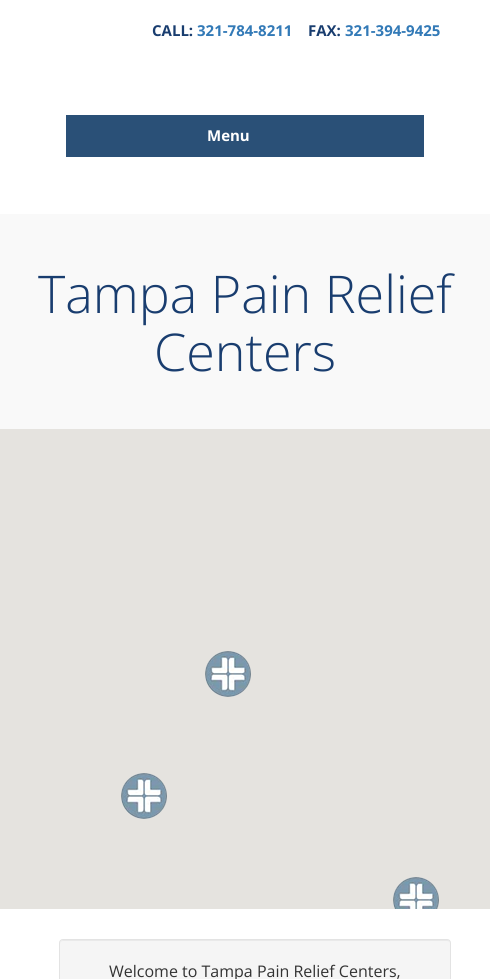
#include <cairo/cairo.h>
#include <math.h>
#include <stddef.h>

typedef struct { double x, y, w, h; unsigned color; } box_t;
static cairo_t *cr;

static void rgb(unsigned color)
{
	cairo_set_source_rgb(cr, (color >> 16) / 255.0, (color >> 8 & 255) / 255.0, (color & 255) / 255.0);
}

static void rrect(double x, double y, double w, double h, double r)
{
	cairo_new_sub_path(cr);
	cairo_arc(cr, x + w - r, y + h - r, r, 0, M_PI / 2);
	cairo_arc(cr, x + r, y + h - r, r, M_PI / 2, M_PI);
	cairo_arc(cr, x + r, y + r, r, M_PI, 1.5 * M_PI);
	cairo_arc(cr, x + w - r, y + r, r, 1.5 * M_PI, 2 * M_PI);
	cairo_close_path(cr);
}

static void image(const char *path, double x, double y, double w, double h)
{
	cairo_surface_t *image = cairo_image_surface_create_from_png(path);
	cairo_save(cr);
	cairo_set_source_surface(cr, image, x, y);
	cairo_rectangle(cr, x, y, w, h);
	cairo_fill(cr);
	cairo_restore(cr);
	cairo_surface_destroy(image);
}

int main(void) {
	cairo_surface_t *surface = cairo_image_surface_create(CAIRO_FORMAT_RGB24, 490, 979);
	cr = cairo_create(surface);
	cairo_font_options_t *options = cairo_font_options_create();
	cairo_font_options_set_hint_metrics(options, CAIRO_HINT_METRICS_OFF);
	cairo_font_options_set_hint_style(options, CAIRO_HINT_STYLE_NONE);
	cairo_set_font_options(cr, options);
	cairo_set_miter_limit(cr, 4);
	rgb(0xffffff);
	cairo_paint(cr);
	{
		static const box_t items[] = {
			{66, 115, 358, 42, 0x2a5077},
			{0, 214, 490, 215, 0xf9f9f9},
			{0, 429, 490, 480, 0xe5e3df},
		};
		for (size_t i = 0; i < sizeof items / sizeof *items; i++) {
			rgb(items[i].color);
			cairo_rectangle(cr, items[i].x, items[i].y, items[i].w, items[i].h);
			cairo_fill(cr);
		}
	}
	image("img/1.png", 205, 651, 46, 46);
	image("img/1.png", 121, 773, 46, 46);
	image("img/2.png", 393, 877, 46, 32);
	rgb(0xf5f5f5);
	rrect(59, 939, 392, 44, 4);
	cairo_fill(cr);
	rgb(0xe9e9e9);
	cairo_new_path(cr);
	cairo_move_to(cr, 63, 941);
	cairo_line_to(cr, 447, 941);
	cairo_curve_to(cr, 449, 941, 450, 942, 450, 944);
	cairo_curve_to(cr, 450, 942, 449, 940, 447, 940);
	cairo_line_to(cr, 63, 940);
	cairo_line_to(cr, 61, 941);
	cairo_line_to(cr, 60, 944);
	cairo_curve_to(cr, 60, 942, 61, 941, 63, 941);
	cairo_close_path(cr);
	cairo_fill(cr);
	rrect(59.5, 939.5, 391, 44, 3.5);
	rgb(0xe3e3e3);
	cairo_set_line_width(cr, 1);
	cairo_stroke(cr);
	cairo_select_font_face(cr, "Open Sans", CAIRO_FONT_SLANT_NORMAL, CAIRO_FONT_WEIGHT_BOLD);
	cairo_set_font_size(cr, 15);
	rgb(0x193d6f);
	cairo_move_to(cr, 152, 36);
	cairo_show_text(cr, "CALL:");
	rgb(0x337ab7);
	cairo_move_to(cr, 197, 36);
	cairo_show_text(cr, "321-784-8211");
	rgb(0x193d6f);
	cairo_move_to(cr, 308, 36);
	cairo_show_text(cr, "FAX:");
	rgb(0x337ab7);
	cairo_move_to(cr, 345, 36);
	cairo_show_text(cr, "321-394-9425");
	rgb(0xffffff);
	cairo_move_to(cr, 207, 141);
	cairo_show_text(cr, "Menu");
	cairo_select_font_face(cr, "Open Sans Light", CAIRO_FONT_SLANT_NORMAL, CAIRO_FONT_WEIGHT_NORMAL);
	cairo_set_font_size(cr, 52);
	rgb(0x193d6f);
	cairo_move_to(cr, 38, 313);
	cairo_show_text(cr, "Tampa Pain Relief");
	cairo_move_to(cr, 154, 371);
	cairo_show_text(cr, "Centers");
	cairo_select_font_face(cr, "Open Sans", CAIRO_FONT_SLANT_NORMAL, CAIRO_FONT_WEIGHT_NORMAL);
	cairo_set_font_size(cr, 16);
	rgb(0x333333);
	cairo_move_to(cr, 109, 977);
	cairo_show_text(cr, "Welcome to Tampa Pain Relief Centers,");
	cairo_surface_write_to_png(surface, "page.png");
	cairo_font_options_destroy(options);
	cairo_destroy(cr);
	cairo_surface_destroy(surface);
	return 0;
}
